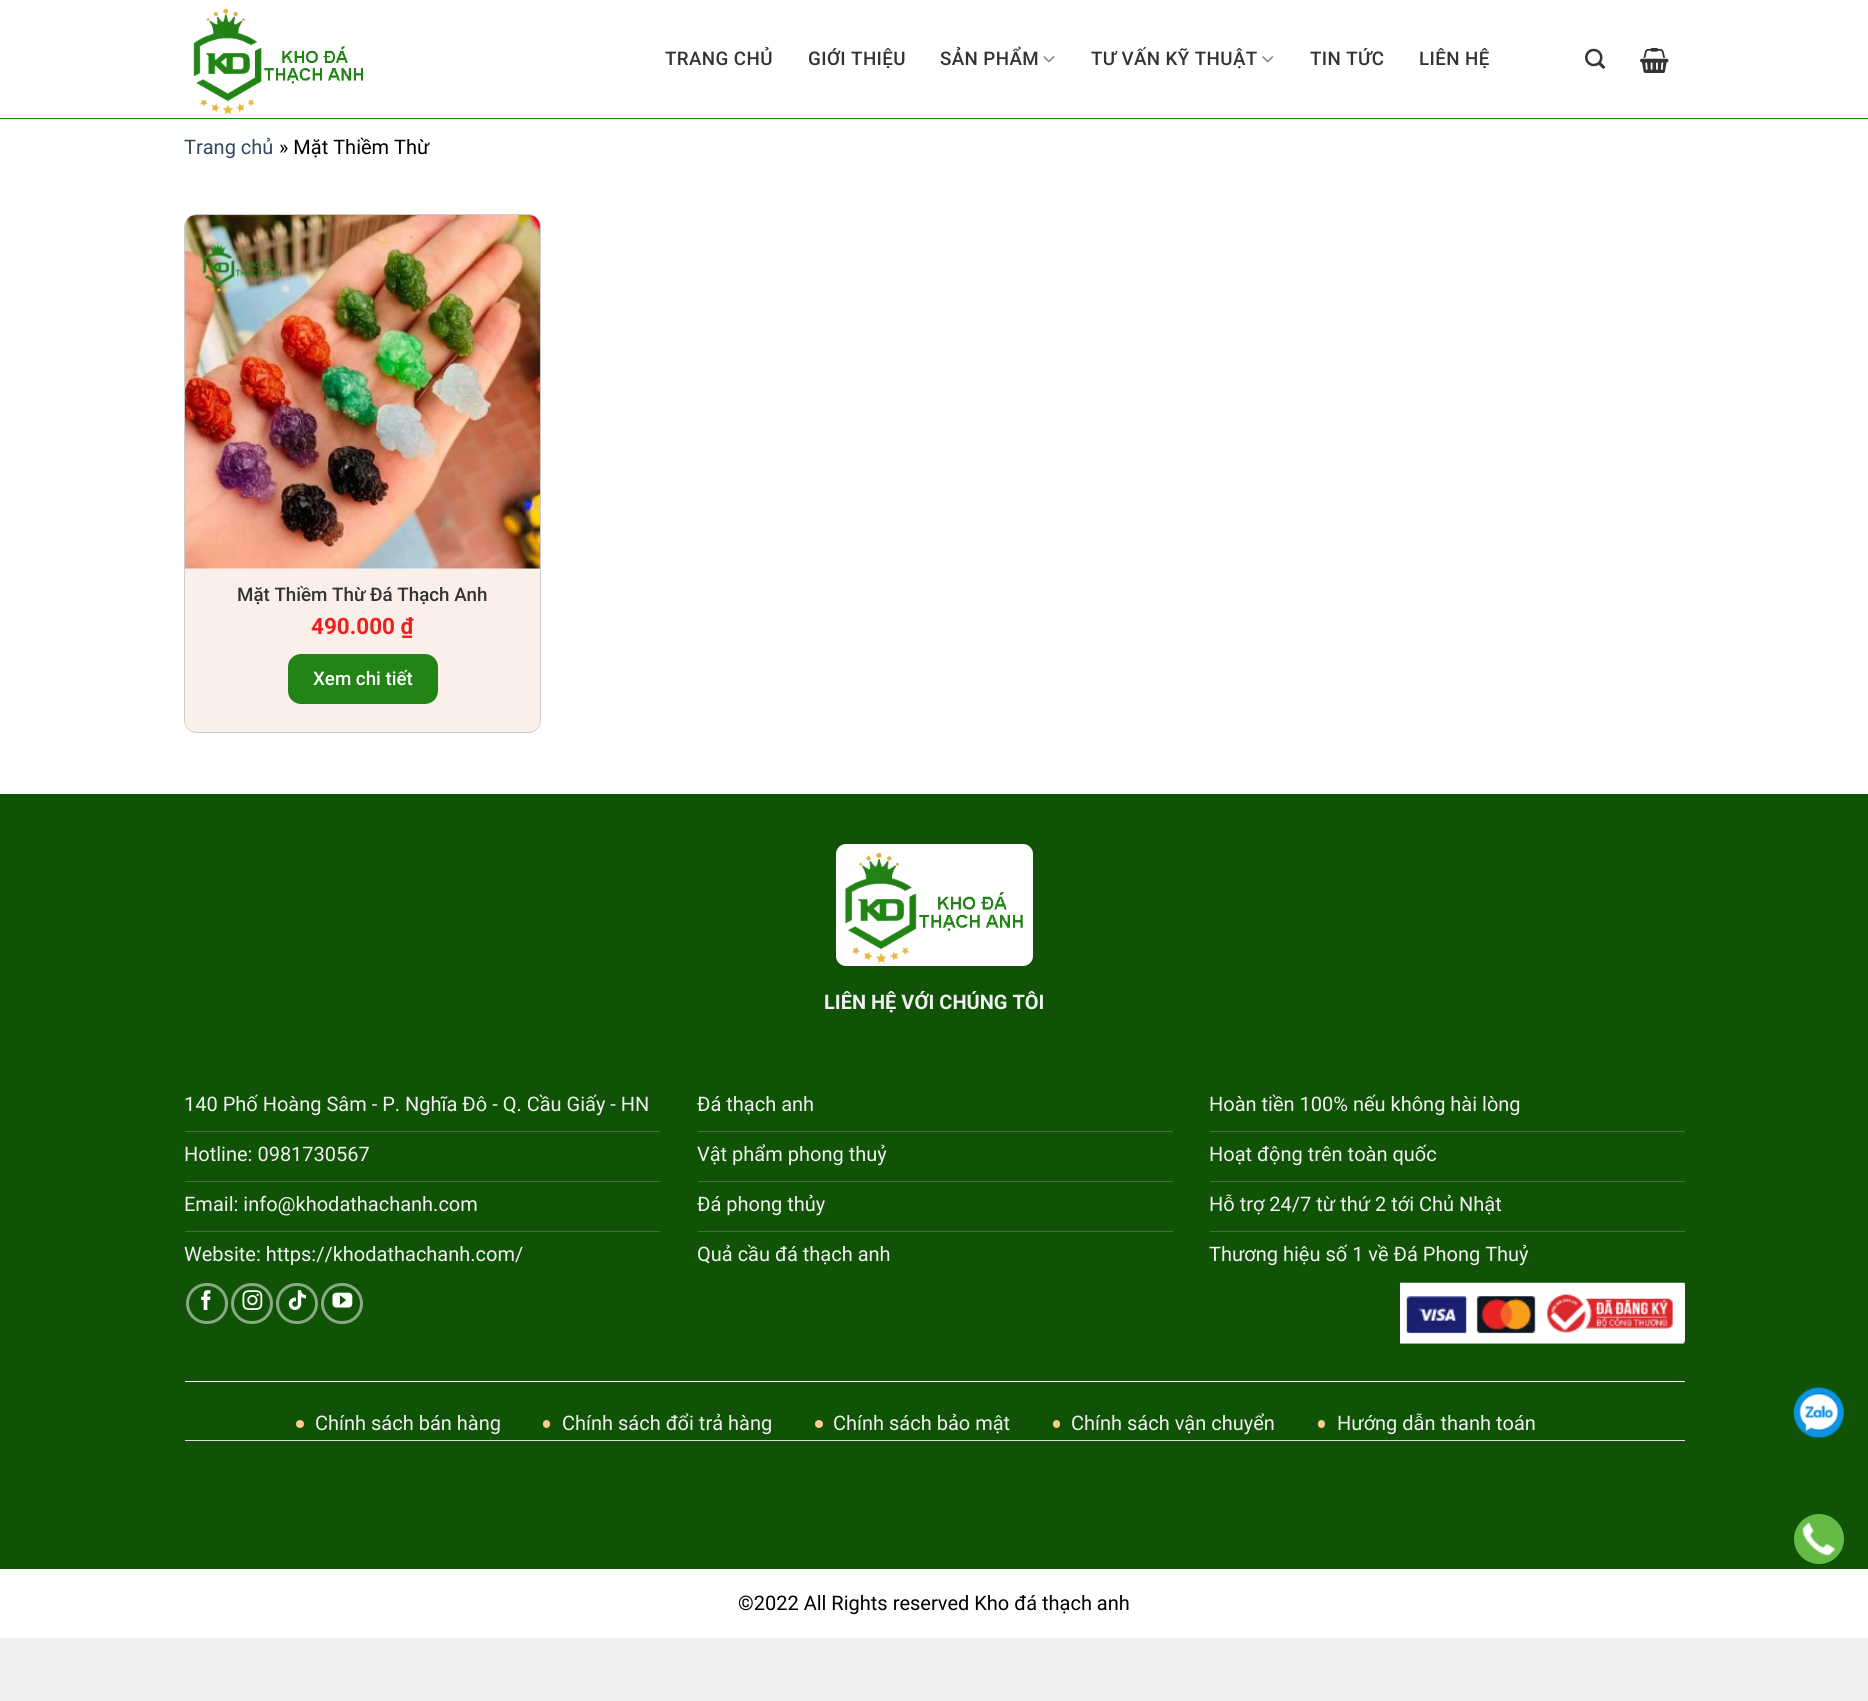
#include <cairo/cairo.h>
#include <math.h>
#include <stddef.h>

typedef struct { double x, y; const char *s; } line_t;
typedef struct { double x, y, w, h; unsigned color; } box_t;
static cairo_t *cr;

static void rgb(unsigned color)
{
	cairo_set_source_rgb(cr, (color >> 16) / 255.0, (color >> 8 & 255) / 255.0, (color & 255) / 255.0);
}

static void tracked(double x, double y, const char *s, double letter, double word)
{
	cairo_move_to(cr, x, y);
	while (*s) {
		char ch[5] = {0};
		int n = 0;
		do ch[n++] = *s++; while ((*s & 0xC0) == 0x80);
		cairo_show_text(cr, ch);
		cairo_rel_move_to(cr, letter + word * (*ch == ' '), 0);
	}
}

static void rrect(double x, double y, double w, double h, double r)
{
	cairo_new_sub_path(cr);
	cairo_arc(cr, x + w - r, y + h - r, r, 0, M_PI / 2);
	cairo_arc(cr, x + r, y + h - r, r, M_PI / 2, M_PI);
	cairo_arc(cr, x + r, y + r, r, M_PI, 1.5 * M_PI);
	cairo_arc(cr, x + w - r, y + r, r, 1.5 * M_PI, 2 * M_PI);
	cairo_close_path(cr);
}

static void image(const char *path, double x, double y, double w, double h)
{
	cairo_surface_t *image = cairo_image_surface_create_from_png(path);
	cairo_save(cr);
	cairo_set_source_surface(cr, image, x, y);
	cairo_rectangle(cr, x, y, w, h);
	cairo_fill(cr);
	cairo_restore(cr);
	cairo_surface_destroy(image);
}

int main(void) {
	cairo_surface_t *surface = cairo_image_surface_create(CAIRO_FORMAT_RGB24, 1868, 1701);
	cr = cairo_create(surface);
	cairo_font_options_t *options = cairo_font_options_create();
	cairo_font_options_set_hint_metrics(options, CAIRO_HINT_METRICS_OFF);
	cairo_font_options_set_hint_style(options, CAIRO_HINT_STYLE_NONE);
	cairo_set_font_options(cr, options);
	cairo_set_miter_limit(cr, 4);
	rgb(0xf0f0f0);
	cairo_paint(cr);
	rgb(0xffffff);
	cairo_rectangle(cr, 0, 0, 1868, 1638);
	cairo_fill(cr);
	rgb(0x228415);
	cairo_rectangle(cr, 0, 118, 1868, 1);
	cairo_fill(cr);
	image("img/1.png", 193, 8, 170, 107);
	image("img/2.png", 1043, 56, 12, 7);
	image("img/3.png", 1262, 56, 12, 7);
	image("img/4.png", 1585, 48, 20, 21);
	image("img/5.png", 1640, 48, 29, 25);
	rgb(0xfbf0e9);
	rrect(184.5, 214.5, 356, 518, 12.5);
	cairo_fill_preserve(cr);
	rgb(0xcccccc);
	cairo_set_line_width(cr, 1);
	cairo_stroke(cr);
	rgb(0xffffff);
	rrect(185, 215, 355, 516, 11);
	cairo_fill(cr);
	image("img/6.png", 185, 215, 355, 354);
	rgb(0xfbf0e9);
	cairo_new_path(cr);
	cairo_move_to(cr, 185, 569);
	cairo_line_to(cr, 540, 569);
	cairo_line_to(cr, 540, 720);
	cairo_curve_to(cr, 540, 726, 535, 731, 529, 731);
	cairo_line_to(cr, 196, 731);
	cairo_curve_to(cr, 190, 731, 185, 726, 185, 720);
	cairo_close_path(cr);
	cairo_fill(cr);
	rgb(0x228415);
	rrect(288, 654, 150, 50, 13);
	cairo_fill(cr);
	rgb(0x105307);
	cairo_rectangle(cr, 0, 794, 1868, 775);
	cairo_fill(cr);
	rgb(0xffffff);
	rrect(836, 844, 197, 122, 10);
	cairo_fill(cr);
	image("img/7.png", 845, 852, 178, 111);
	{
		static const box_t items[] = {
			{185, 1131, 475, 1, 0x407539},
			{185, 1181, 475, 1, 0x407539},
			{185, 1231, 475, 1, 0x407539},
		};
		for (size_t i = 0; i < sizeof items / sizeof *items; i++) {
			rgb(items[i].color);
			cairo_rectangle(cr, items[i].x, items[i].y, items[i].w, items[i].h);
			cairo_fill(cr);
		}
	}
	rrect(187.5, 1284.5, 39, 38, 19);
	rgb(0x88a983);
	cairo_set_line_width(cr, 3);
	cairo_stroke(cr);
	image("img/8.png", 201, 1290, 10, 20);
	rrect(232.5, 1284.5, 39, 38, 19);
	cairo_stroke(cr);
	image("img/9.png", 242, 1290, 21, 20);
	rrect(277.5, 1284.5, 39, 38, 19);
	cairo_stroke(cr);
	image("img/10.png", 288, 1290, 18, 20);
	rrect(322.5, 1284.5, 39, 38, 19);
	cairo_stroke(cr);
	image("img/11.png", 332, 1292, 21, 16);
	{
		static const box_t items[] = {
			{698, 1131, 475, 1, 0x407539},
			{698, 1181, 475, 1, 0x407539},
			{698, 1231, 475, 1, 0x407539},
			{1210, 1131, 475, 1, 0x407539},
			{1210, 1181, 475, 1, 0x407539},
			{1210, 1231, 475, 1, 0x407539},
		};
		for (size_t i = 0; i < sizeof items / sizeof *items; i++) {
			rgb(items[i].color);
			cairo_rectangle(cr, items[i].x, items[i].y, items[i].w, items[i].h);
			cairo_fill(cr);
		}
	}
	image("img/12.png", 1400, 1282, 285, 62);
	rgb(0xffffff);
	cairo_rectangle(cr, 185, 1381, 1500, 1);
	cairo_fill(cr);
	rgb(0xfecc86);
	cairo_arc(cr, 300, 1424, 4, 0, 2 * M_PI);
	cairo_fill(cr);
	rrect(543, 1420, 7, 8, 3.5);
	cairo_fill(cr);
	cairo_arc(cr, 819, 1424, 4, 0, 2 * M_PI);
	cairo_fill(cr);
	rrect(1053, 1420, 7, 8, 3.5);
	cairo_fill(cr);
	rrect(1318, 1420, 7, 8, 3.5);
	cairo_fill(cr);
	rgb(0xdddddd);
	cairo_rectangle(cr, 185, 1440, 1500, 1);
	cairo_fill(cr);
	image("img/13.png", 1793, 1387, 51, 52);
	rgb(0x64bc46);
	cairo_arc(cr, 1819, 1539, 25, 0, 2 * M_PI);
	cairo_fill(cr);
	image("img/14.png", 1802, 1522, 33, 34);
	cairo_select_font_face(cr, "Roboto Medium", CAIRO_FONT_SLANT_NORMAL, CAIRO_FONT_WEIGHT_NORMAL);
	cairo_set_font_size(cr, 18.75);
	rgb(0x333333);
	{
		static const line_t items[] = {
			{665, 65, "TRANG CHỦ"},
			{808, 65, "GIỚI THIỆU"},
			{940, 65, "SẢN PHẨM"},
			{1091, 65, "TƯ VẤN KỸ THUẬT"},
			{1310, 65, "TIN TỨC"},
			{1419, 65, "LIÊN HỆ"},
		};
		for (size_t i = 0; i < sizeof items / sizeof *items; i++) {
			tracked(items[i].x, items[i].y, items[i].s, 0.4, 0);
		}
	}
	cairo_select_font_face(cr, "Roboto", CAIRO_FONT_SLANT_NORMAL, CAIRO_FONT_WEIGHT_NORMAL);
	cairo_set_font_size(cr, 20);
	rgb(0x334862);
	cairo_move_to(cr, 184, 154);
	cairo_show_text(cr, "Trang chủ");
	rgb(0x000000);
	cairo_move_to(cr, 279, 154);
	cairo_show_text(cr, "» Mặt Thiềm Thừ");
	cairo_select_font_face(cr, "Roboto Medium", CAIRO_FONT_SLANT_NORMAL, CAIRO_FONT_WEIGHT_NORMAL);
	cairo_set_font_size(cr, 18.75);
	rgb(0x333333);
	cairo_move_to(cr, 237, 601);
	cairo_show_text(cr, "Mặt Thiềm Thừ Đá Thạch Anh");
	cairo_select_font_face(cr, "Roboto", CAIRO_FONT_SLANT_NORMAL, CAIRO_FONT_WEIGHT_BOLD);
	cairo_set_font_size(cr, 22.5);
	rgb(0xee1f1f);
	cairo_move_to(cr, 311, 634);
	cairo_show_text(cr, "490.000 ₫");
	cairo_select_font_face(cr, "Roboto Medium", CAIRO_FONT_SLANT_NORMAL, CAIRO_FONT_WEIGHT_NORMAL);
	cairo_set_font_size(cr, 18.75);
	rgb(0xffffff);
	cairo_move_to(cr, 313, 685);
	cairo_show_text(cr, "Xem chi tiết");
	cairo_select_font_face(cr, "Roboto", CAIRO_FONT_SLANT_NORMAL, CAIRO_FONT_WEIGHT_BOLD);
	cairo_set_font_size(cr, 20);
	rgb(0xf1f1f1);
	cairo_move_to(cr, 824, 1009);
	cairo_show_text(cr, "LIÊN HỆ VỚI CHÚNG TÔI");
	cairo_select_font_face(cr, "Roboto", CAIRO_FONT_SLANT_NORMAL, CAIRO_FONT_WEIGHT_NORMAL);
	{
		static const line_t items[] = {
			{184, 1111, "140 Phố Hoàng Sâm - P. Nghĩa Đô - Q. Cầu Giấy - HN"},
			{184, 1161, "Hotline: 0981730567"},
			{184, 1211, "Email: info@khodathachanh.com"},
			{184, 1261, "Website: https://khodathachanh.com/"},
			{697, 1111, "Đá thạch anh"},
			{697, 1161, "Vật phẩm phong thuỷ"},
			{697, 1211, "Đá phong thủy"},
			{697, 1261, "Quả cầu đá thạch anh"},
			{1209, 1111, "Hoàn tiền 100% nếu không hài lòng"},
			{1209, 1161, "Hoạt động trên toàn quốc"},
			{1209, 1211, "Hỗ trợ 24/7 từ thứ 2 tới Chủ Nhật"},
			{1209, 1261, "Thương hiệu số 1 về Đá Phong Thuỷ"},
			{315, 1430, "Chính sách bán hàng"},
			{562, 1430, "Chính sách đổi trả hàng"},
			{833, 1430, "Chính sách bảo mật"},
			{1071, 1430, "Chính sách vận chuyển"},
			{1337, 1430, "Hướng dẫn thanh toán"},
		};
		for (size_t i = 0; i < sizeof items / sizeof *items; i++) {
			cairo_move_to(cr, items[i].x, items[i].y);
			cairo_show_text(cr, items[i].s);
		}
	}
	rgb(0x000000);
	cairo_move_to(cr, 738, 1610);
	cairo_show_text(cr, "©2022 All Rights reserved Kho đá thạch anh");
	cairo_surface_write_to_png(surface, "page.png");
	cairo_font_options_destroy(options);
	cairo_destroy(cr);
	cairo_surface_destroy(surface);
	return 0;
}
